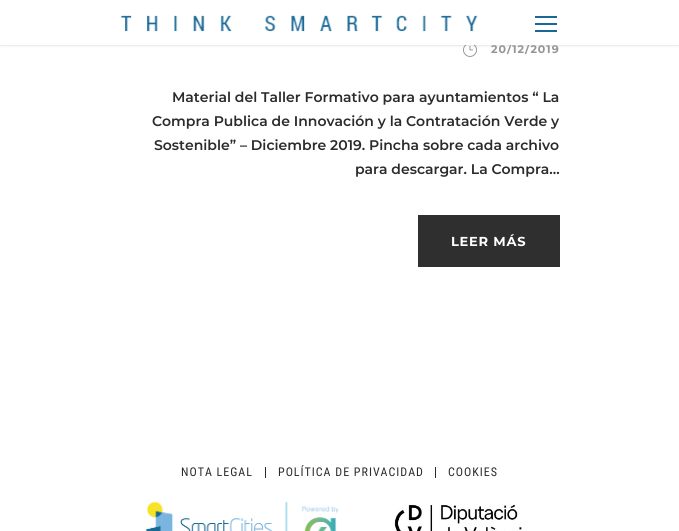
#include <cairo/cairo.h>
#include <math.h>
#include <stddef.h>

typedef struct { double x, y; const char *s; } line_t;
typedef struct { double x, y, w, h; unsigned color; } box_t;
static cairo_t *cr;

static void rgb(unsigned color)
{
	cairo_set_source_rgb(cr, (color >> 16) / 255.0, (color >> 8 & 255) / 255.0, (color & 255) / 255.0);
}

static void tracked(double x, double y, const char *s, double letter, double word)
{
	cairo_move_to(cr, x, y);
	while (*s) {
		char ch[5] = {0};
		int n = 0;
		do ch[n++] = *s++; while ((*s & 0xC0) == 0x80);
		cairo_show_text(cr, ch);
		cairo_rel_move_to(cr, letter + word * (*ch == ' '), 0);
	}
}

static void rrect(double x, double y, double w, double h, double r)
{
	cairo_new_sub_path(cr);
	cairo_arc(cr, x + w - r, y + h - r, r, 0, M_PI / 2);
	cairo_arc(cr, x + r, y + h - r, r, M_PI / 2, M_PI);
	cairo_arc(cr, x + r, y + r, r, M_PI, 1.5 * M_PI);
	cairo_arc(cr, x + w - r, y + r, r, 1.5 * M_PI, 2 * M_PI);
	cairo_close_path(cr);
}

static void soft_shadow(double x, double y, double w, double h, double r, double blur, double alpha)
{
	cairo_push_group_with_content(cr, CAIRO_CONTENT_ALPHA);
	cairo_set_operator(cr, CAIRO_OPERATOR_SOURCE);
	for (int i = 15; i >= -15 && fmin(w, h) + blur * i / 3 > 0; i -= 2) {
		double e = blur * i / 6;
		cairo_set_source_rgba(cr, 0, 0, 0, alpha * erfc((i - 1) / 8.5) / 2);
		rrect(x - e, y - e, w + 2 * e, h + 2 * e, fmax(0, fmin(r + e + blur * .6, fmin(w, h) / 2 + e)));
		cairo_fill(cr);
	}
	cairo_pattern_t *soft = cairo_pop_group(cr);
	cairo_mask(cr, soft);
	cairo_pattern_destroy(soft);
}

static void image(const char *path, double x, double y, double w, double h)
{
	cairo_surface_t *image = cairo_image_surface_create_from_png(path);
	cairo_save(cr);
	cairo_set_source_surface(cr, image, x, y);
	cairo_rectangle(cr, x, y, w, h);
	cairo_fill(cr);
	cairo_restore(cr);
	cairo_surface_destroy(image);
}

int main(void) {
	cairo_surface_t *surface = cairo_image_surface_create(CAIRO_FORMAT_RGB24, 679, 531);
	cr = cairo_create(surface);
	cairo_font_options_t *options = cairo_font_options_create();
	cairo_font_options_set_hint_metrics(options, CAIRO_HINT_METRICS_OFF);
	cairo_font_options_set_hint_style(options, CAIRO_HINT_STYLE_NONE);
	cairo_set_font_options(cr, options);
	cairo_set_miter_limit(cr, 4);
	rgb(0xffffff);
	cairo_paint(cr);
	image("img/2.png", 463, 45, 14, 12);
	rgb(0x000000);
	soft_shadow(0, 1, 679, 45, 0, 1, 0.1);
	{
		static const box_t items[] = {
			{418, 215, 142, 52, 0x2f2f2f},
			{265, 467, 1, 11, 0x2b2b2b},
			{435, 467, 1, 11, 0x2b2b2b},
		};
		for (size_t i = 0; i < sizeof items / sizeof *items; i++) {
			rgb(items[i].color);
			cairo_rectangle(cr, items[i].x, items[i].y, items[i].w, items[i].h);
			cairo_fill(cr);
		}
	}
	image("img/3.png", 145, 501, 193, 30);
	image("img/4.png", 394, 504, 133, 27);
	cairo_select_font_face(cr, "Montserrat", CAIRO_FONT_SLANT_NORMAL, CAIRO_FONT_WEIGHT_BOLD);
	cairo_set_font_size(cr, 11);
	rgb(0x959595);
	tracked(491, 53, "20/12/2019", 1, 0);
	{
		static const box_t items[] = {
			{0, 0, 679, 45, 0xffffff},
			{535, 30, 22, 2, 0x1a6896},
			{535, 23, 22, 2, 0x1a6896},
			{535, 16, 22, 2, 0x1a6896},
		};
		for (size_t i = 0; i < sizeof items / sizeof *items; i++) {
			rgb(items[i].color);
			cairo_rectangle(cr, items[i].x, items[i].y, items[i].w, items[i].h);
			cairo_fill(cr);
		}
	}
	image("img/1.png", 120, 15, 358, 17);
	cairo_select_font_face(cr, "Montserrat SemiBold", CAIRO_FONT_SLANT_NORMAL, CAIRO_FONT_WEIGHT_NORMAL);
	cairo_set_font_size(cr, 14);
	rgb(0x2b2b2b);
	{
		static const line_t items[] = {
			{172, 102, "Material del Taller Formativo para ayuntamientos “ La"},
			{152, 126, "Compra Publica de Innovación y la Contratación Verde y"},
			{154, 150, "Sostenible” – Diciembre 2019. Pincha sobre cada archivo"},
			{355, 174, "para descargar. La Compra..."},
		};
		for (size_t i = 0; i < sizeof items / sizeof *items; i++) {
			cairo_move_to(cr, items[i].x, items[i].y);
			cairo_show_text(cr, items[i].s);
		}
	}
	cairo_select_font_face(cr, "Montserrat", CAIRO_FONT_SLANT_NORMAL, CAIRO_FONT_WEIGHT_BOLD);
	cairo_set_font_size(cr, 13);
	rgb(0xffffff);
	tracked(451, 246, "LEER MÁS", 0.75, 0);
	cairo_select_font_face(cr, "Roboto Condensed", CAIRO_FONT_SLANT_NORMAL, CAIRO_FONT_WEIGHT_NORMAL);
	cairo_set_font_size(cr, 12);
	rgb(0x2b2b2b);
	{
		static const line_t items[] = {
			{181, 476, "NOTA LEGAL"},
			{278, 476, "POLÍTICA DE PRIVACIDAD"},
			{448, 476, "COOKIES"},
		};
		for (size_t i = 0; i < sizeof items / sizeof *items; i++) {
			tracked(items[i].x, items[i].y, items[i].s, 1, 0);
		}
	}
	cairo_surface_write_to_png(surface, "page.png");
	cairo_font_options_destroy(options);
	cairo_destroy(cr);
	cairo_surface_destroy(surface);
	return 0;
}
